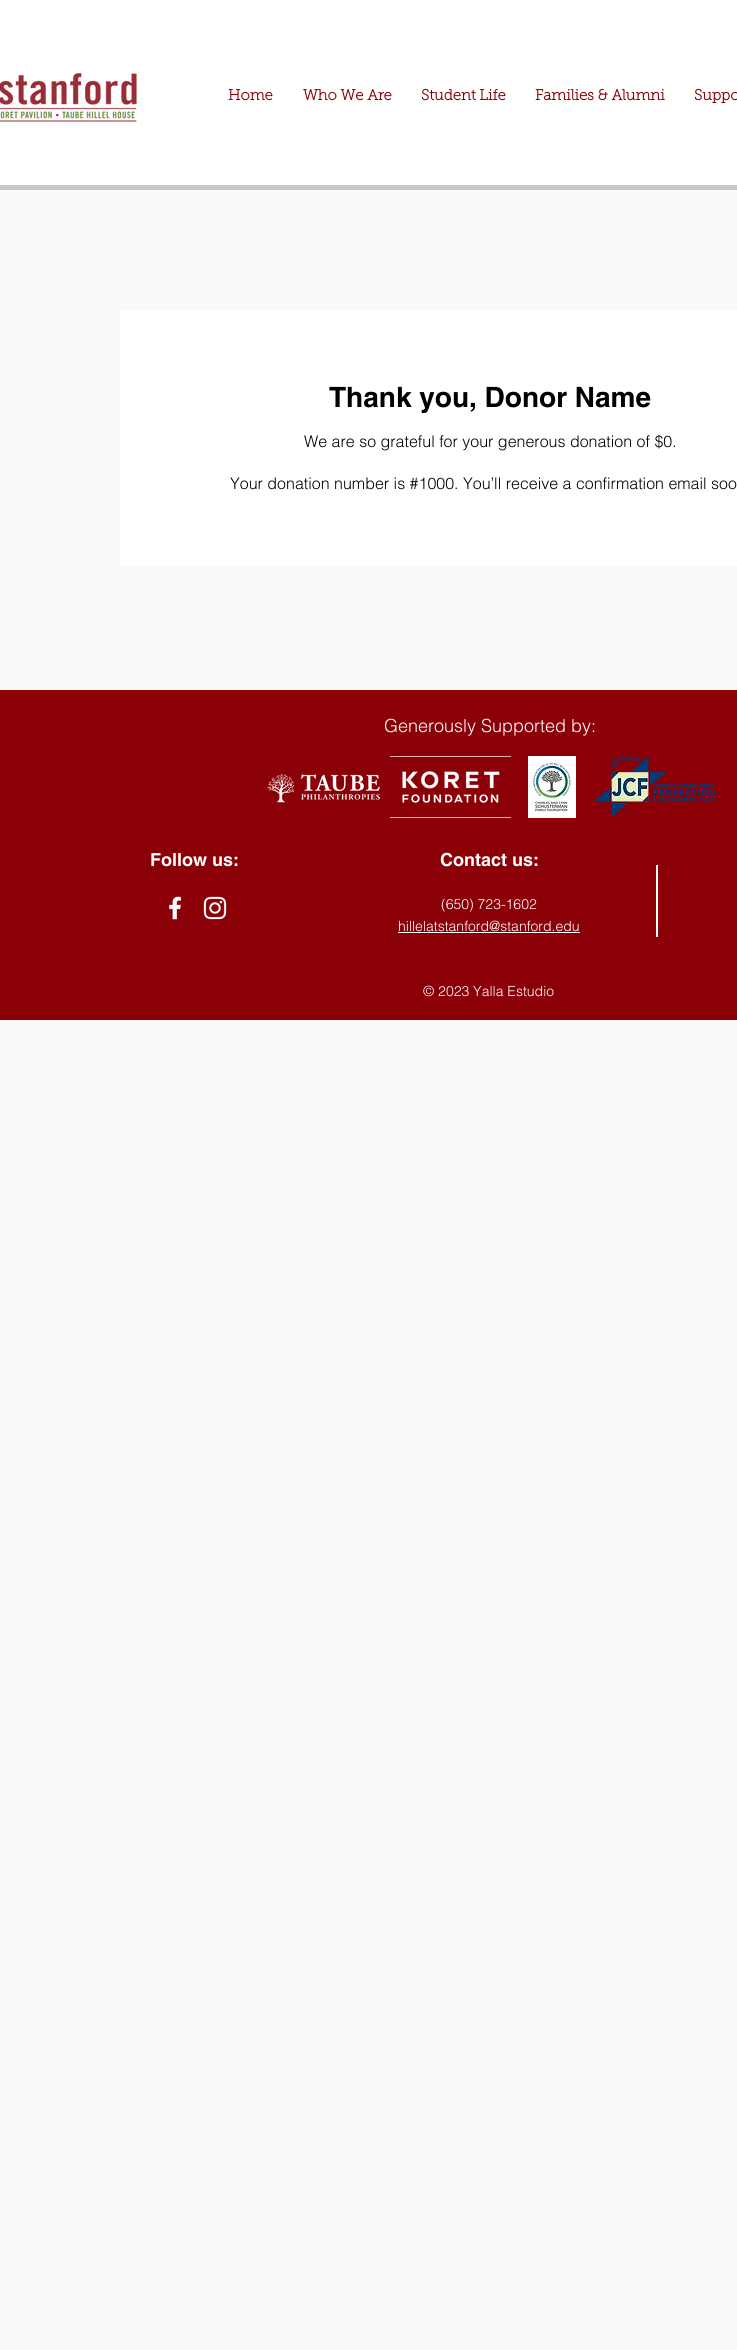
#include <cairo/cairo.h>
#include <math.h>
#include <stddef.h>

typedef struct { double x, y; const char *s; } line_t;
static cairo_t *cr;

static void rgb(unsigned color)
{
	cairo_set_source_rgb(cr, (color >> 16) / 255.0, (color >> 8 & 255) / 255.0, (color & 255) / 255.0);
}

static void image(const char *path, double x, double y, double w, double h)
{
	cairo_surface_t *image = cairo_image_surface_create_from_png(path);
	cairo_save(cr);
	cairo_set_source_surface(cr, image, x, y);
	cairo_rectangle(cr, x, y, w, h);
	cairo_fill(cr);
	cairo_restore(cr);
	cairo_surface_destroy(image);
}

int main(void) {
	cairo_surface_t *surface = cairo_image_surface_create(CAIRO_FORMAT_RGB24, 737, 2350);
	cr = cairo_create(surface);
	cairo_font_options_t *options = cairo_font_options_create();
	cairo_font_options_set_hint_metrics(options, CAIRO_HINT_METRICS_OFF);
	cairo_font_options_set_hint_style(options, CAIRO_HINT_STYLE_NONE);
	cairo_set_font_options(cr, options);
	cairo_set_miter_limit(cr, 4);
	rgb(0xfafafa);
	cairo_paint(cr);
	rgb(0xffffff);
	cairo_rectangle(cr, 0, 0, 737, 185);
	cairo_fill(cr);
	rgb(0xc7c7c7);
	cairo_rectangle(cr, 0, 185, 737, 5);
	cairo_fill(cr);
	image("img/1.png", 0, 73, 137, 49);
	rgb(0xffffff);
	cairo_rectangle(cr, 120, 310, 617, 256);
	cairo_fill(cr);
	rgb(0x8b0007);
	cairo_rectangle(cr, 0, 690, 737, 330);
	cairo_fill(cr);
	image("img/2.png", 267, 774, 113, 29);
	image("img/3.png", 390, 756, 121, 62);
	image("img/4.png", 528, 756, 48, 62);
	image("img/5.png", 594, 756, 121, 61);
	image("img/6.png", 169, 896, 13, 24);
	image("img/7.png", 203, 896, 24, 24);
	rgb(0xffffff);
	cairo_rectangle(cr, 398, 932, 182, 1);
	cairo_fill(cr);
	cairo_rectangle(cr, 656, 865, 2, 72);
	cairo_fill(cr);
	cairo_select_font_face(cr, "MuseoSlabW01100", CAIRO_FONT_SLANT_NORMAL, CAIRO_FONT_WEIGHT_BOLD);
	cairo_set_font_size(cr, 15);
	rgb(0x8b0007);
	{
		static const line_t items[] = {
			{228, 100, "Home"},
			{303, 100, "Who We Are"},
			{421, 100, "Student Life"},
			{535, 100, "Families & Alumni"},
			{694, 100, "Suppo"},
		};
		for (size_t i = 0; i < sizeof items / sizeof *items; i++) {
			cairo_move_to(cr, items[i].x, items[i].y);
			cairo_show_text(cr, items[i].s);
		}
	}
	cairo_select_font_face(cr, "helvetica", CAIRO_FONT_SLANT_NORMAL, CAIRO_FONT_WEIGHT_BOLD);
	cairo_set_font_size(cr, 28);
	rgb(0x000000);
	cairo_move_to(cr, 329, 407);
	cairo_show_text(cr, "Thank you, Donor Name");
	cairo_select_font_face(cr, "helvetica Light", CAIRO_FONT_SLANT_NORMAL, CAIRO_FONT_WEIGHT_NORMAL);
	cairo_set_font_size(cr, 16);
	cairo_move_to(cr, 304, 447);
	cairo_show_text(cr, "We are so grateful for your generous donation of $0.");
	cairo_move_to(cr, 230, 489);
	cairo_show_text(cr, "Your donation number is #1000. You’ll receive a confirmation email soo");
	cairo_set_font_size(cr, 18);
	rgb(0xffffff);
	cairo_move_to(cr, 384, 732);
	cairo_show_text(cr, "Generously Supported by:");
	cairo_select_font_face(cr, "helvetica", CAIRO_FONT_SLANT_NORMAL, CAIRO_FONT_WEIGHT_BOLD);
	cairo_move_to(cr, 150, 866);
	cairo_show_text(cr, "Follow us:");
	cairo_move_to(cr, 440, 866);
	cairo_show_text(cr, "Contact us:");
	cairo_select_font_face(cr, "helvetica Light", CAIRO_FONT_SLANT_NORMAL, CAIRO_FONT_WEIGHT_NORMAL);
	cairo_set_font_size(cr, 14);
	{
		static const line_t items[] = {
			{441, 909, "(650) 723-1602"},
			{398, 931, "hillelatstanford@stanford.edu"},
			{423, 996, "© 2023 Yalla Estudio"},
		};
		for (size_t i = 0; i < sizeof items / sizeof *items; i++) {
			cairo_move_to(cr, items[i].x, items[i].y);
			cairo_show_text(cr, items[i].s);
		}
	}
	cairo_surface_write_to_png(surface, "page.png");
	cairo_font_options_destroy(options);
	cairo_destroy(cr);
	cairo_surface_destroy(surface);
	return 0;
}
